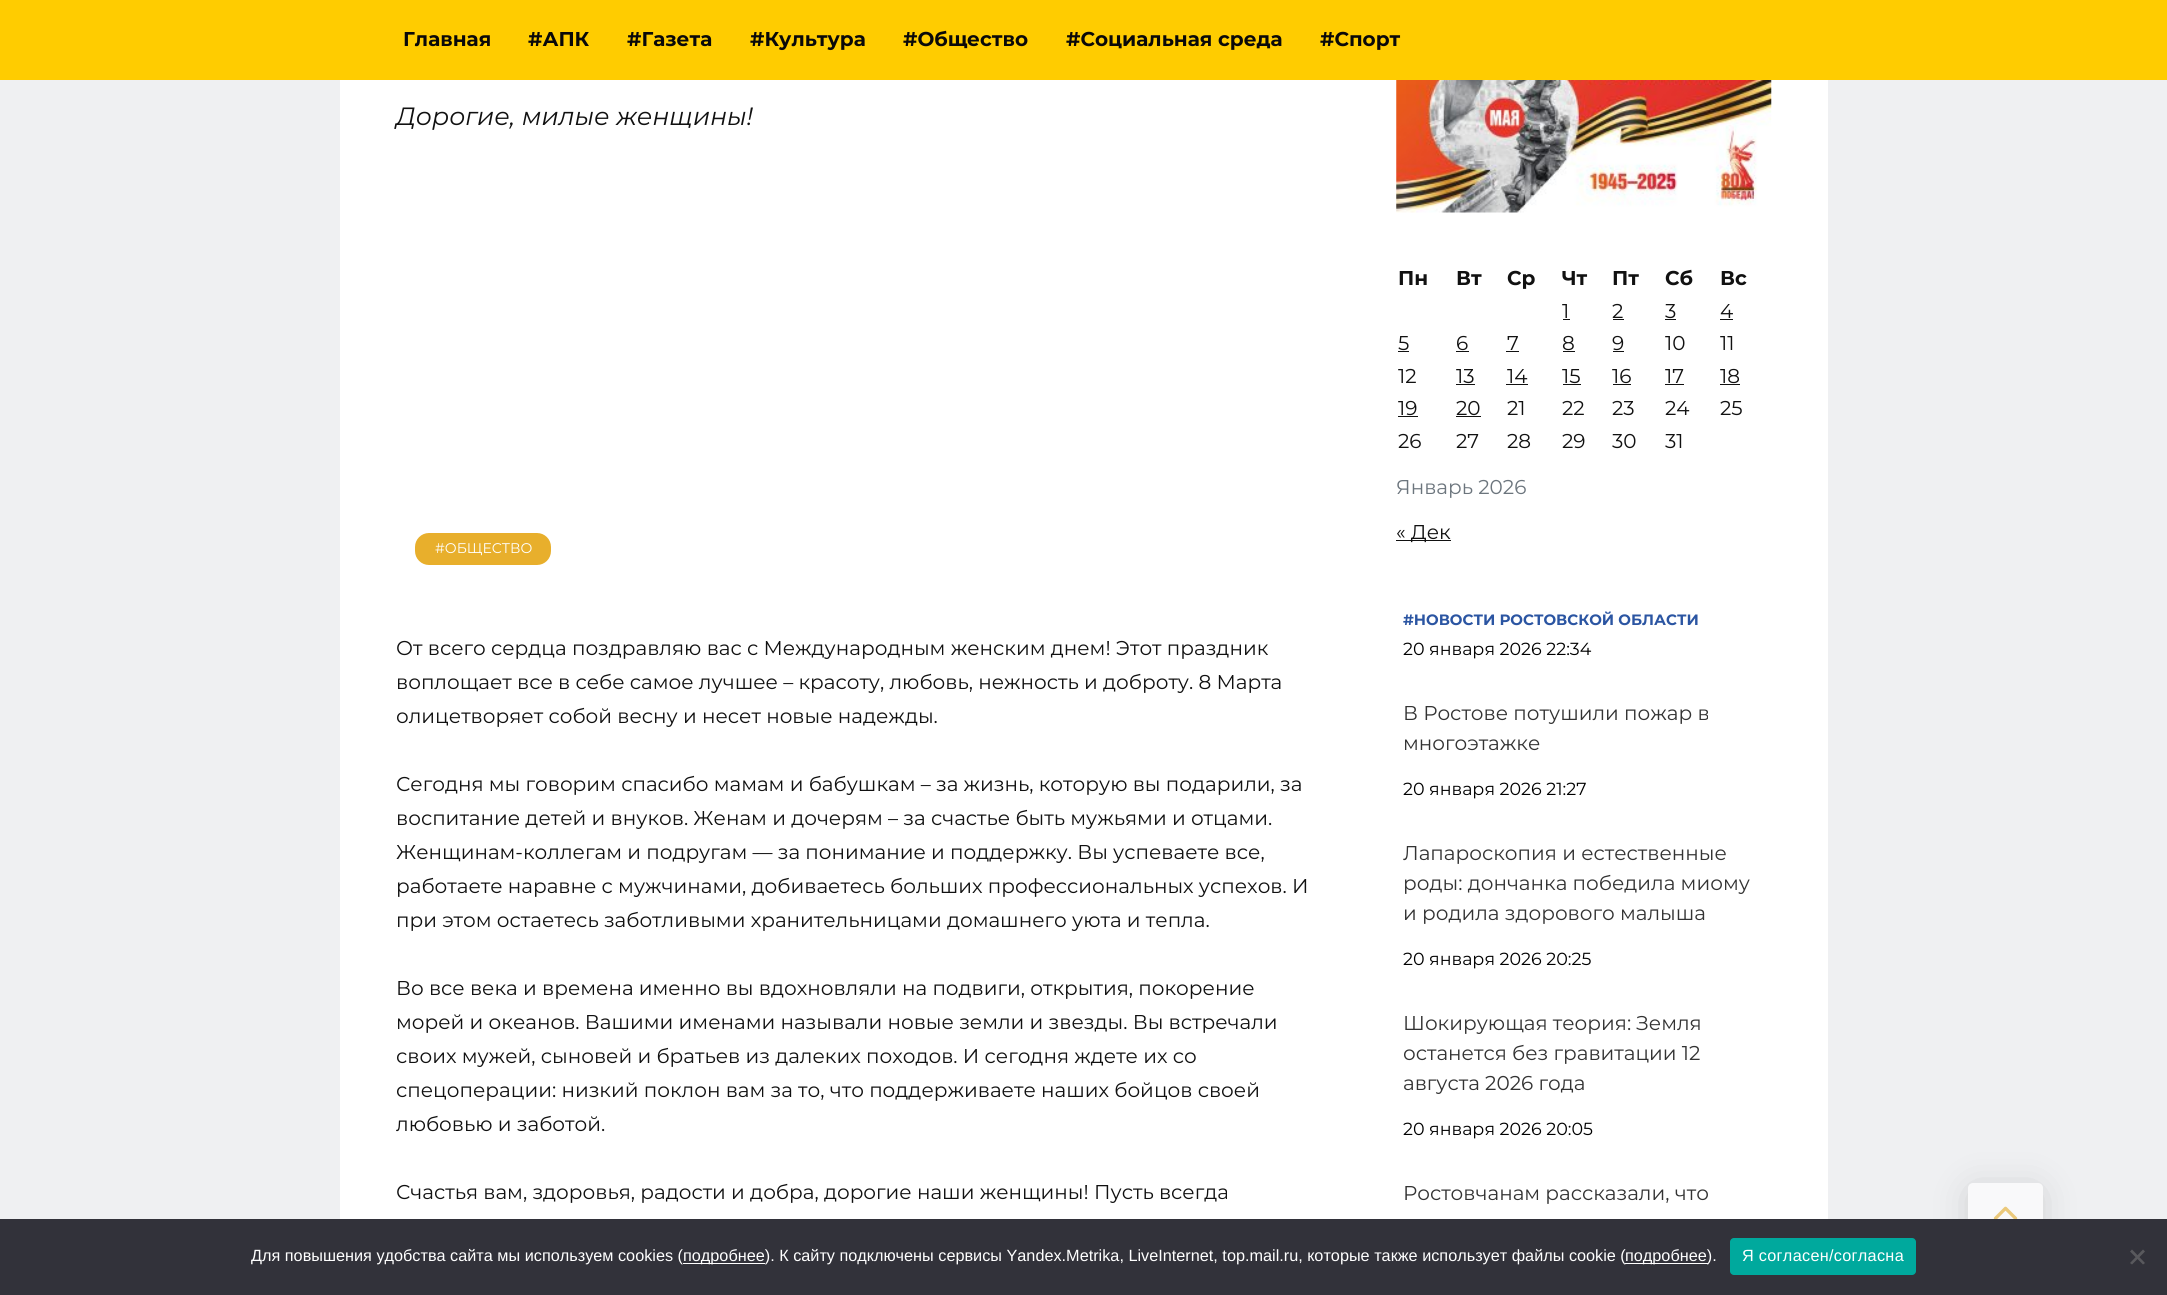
#include <cairo/cairo.h>
#include <math.h>
#include <stddef.h>

typedef struct { double x, y; const char *s; } line_t;
typedef struct { double x, y, w, h; unsigned color; } box_t;
static cairo_t *cr;

static void rgb(unsigned color)
{
	cairo_set_source_rgb(cr, (color >> 16) / 255.0, (color >> 8 & 255) / 255.0, (color & 255) / 255.0);
}

static void tracked(double x, double y, const char *s, double letter, double word)
{
	cairo_move_to(cr, x, y);
	while (*s) {
		char ch[5] = {0};
		int n = 0;
		do ch[n++] = *s++; while ((*s & 0xC0) == 0x80);
		cairo_show_text(cr, ch);
		cairo_rel_move_to(cr, letter + word * (*ch == ' '), 0);
	}
}

static void rrect(double x, double y, double w, double h, double r)
{
	cairo_new_sub_path(cr);
	cairo_arc(cr, x + w - r, y + h - r, r, 0, M_PI / 2);
	cairo_arc(cr, x + r, y + h - r, r, M_PI / 2, M_PI);
	cairo_arc(cr, x + r, y + r, r, M_PI, 1.5 * M_PI);
	cairo_arc(cr, x + w - r, y + r, r, 1.5 * M_PI, 2 * M_PI);
	cairo_close_path(cr);
}

static void soft_shadow(double x, double y, double w, double h, double r, double blur, double alpha)
{
	cairo_push_group_with_content(cr, CAIRO_CONTENT_ALPHA);
	cairo_set_operator(cr, CAIRO_OPERATOR_SOURCE);
	for (int i = 15; i >= -15 && fmin(w, h) + blur * i / 3 > 0; i -= 2) {
		double e = blur * i / 6;
		cairo_set_source_rgba(cr, 0, 0, 0, alpha * erfc((i - 1) / 8.5) / 2);
		rrect(x - e, y - e, w + 2 * e, h + 2 * e, fmax(0, fmin(r + e + blur * .6, fmin(w, h) / 2 + e)));
		cairo_fill(cr);
	}
	cairo_pattern_t *soft = cairo_pop_group(cr);
	cairo_mask(cr, soft);
	cairo_pattern_destroy(soft);
}

static void image(const char *path, double x, double y, double w, double h)
{
	cairo_surface_t *image = cairo_image_surface_create_from_png(path);
	cairo_save(cr);
	cairo_set_source_surface(cr, image, x, y);
	cairo_rectangle(cr, x, y, w, h);
	cairo_fill(cr);
	cairo_restore(cr);
	cairo_surface_destroy(image);
}

int main(void) {
	cairo_surface_t *surface = cairo_image_surface_create(CAIRO_FORMAT_RGB24, 2167, 1295);
	cr = cairo_create(surface);
	cairo_font_options_t *options = cairo_font_options_create();
	cairo_font_options_set_hint_metrics(options, CAIRO_HINT_METRICS_OFF);
	cairo_font_options_set_hint_style(options, CAIRO_HINT_STYLE_NONE);
	cairo_set_font_options(cr, options);
	cairo_set_miter_limit(cr, 4);
	rgb(0xeff0f2);
	cairo_paint(cr);
	rgb(0xffcc00);
	cairo_rectangle(cr, 0, 0, 2167, 80);
	cairo_fill(cr);
	rgb(0xffffff);
	cairo_rectangle(cr, 340, 80, 1488, 1139);
	cairo_fill(cr);
	rgb(0xe8af2c);
	rrect(415, 533, 136, 32, 14);
	cairo_fill(cr);
	image("img/1.png", 1396, 80, 376, 133);
	{
		static const box_t items[] = {
			{1563, 319, 7, 1, 0x111111},
			{1613, 319, 11, 1, 0x111111},
			{1665, 319, 11, 1, 0x111111},
			{1720, 319, 13, 1, 0x111111},
			{1398, 351, 11, 1, 0x111111},
			{1456, 351, 13, 1, 0x111111},
			{1506, 351, 13, 1, 0x111111},
			{1563, 351, 12, 1, 0x111111},
			{1613, 351, 11, 1, 0x111111},
			{1456, 384, 19, 1, 0x111111},
			{1506, 384, 22, 1, 0x111111},
			{1563, 384, 18, 1, 0x111111},
			{1613, 384, 18, 1, 0x111111},
			{1665, 384, 19, 1, 0x111111},
			{1720, 384, 20, 1, 0x111111},
			{1398, 416, 20, 1, 0x111111},
			{1456, 416, 25, 1, 0x111111},
			{1396, 540, 55, 1, 0x111111},
		};
		for (size_t i = 0; i < sizeof items / sizeof *items; i++) {
			rgb(items[i].color);
			cairo_rectangle(cr, items[i].x, items[i].y, items[i].w, items[i].h);
			cairo_fill(cr);
		}
	}
	rgb(0x606061);
	soft_shadow(1974, 1193, 62, 50, 0, 19, 0.3);
	rgb(0xf9f9fa);
	rrect(1968, 1183, 75, 62, 5);
	cairo_fill(cr);
	cairo_select_font_face(cr, "Montserrat", CAIRO_FONT_SLANT_NORMAL, CAIRO_FONT_WEIGHT_BOLD);
	cairo_set_font_size(cr, 20);
	rgb(0x0a0909);
	{
		static const line_t items[] = {
			{403, 46, "Главная"},
			{528, 46, "#АПК"},
			{627, 46, "#Газета"},
			{750, 46, "#Культура"},
			{903, 46, "#Общество"},
			{1066, 46, "#Социальная среда"},
			{1320, 46, "#Спорт"},
		};
		for (size_t i = 0; i < sizeof items / sizeof *items; i++) {
			cairo_move_to(cr, items[i].x, items[i].y);
			cairo_show_text(cr, items[i].s);
		}
	}
	cairo_select_font_face(cr, "Montserrat Thin", CAIRO_FONT_SLANT_ITALIC, CAIRO_FONT_WEIGHT_NORMAL);
	cairo_set_font_size(cr, 25);
	rgb(0x111111);
	cairo_move_to(cr, 396, 125);
	cairo_show_text(cr, "Дорогие, милые женщины!");
	cairo_select_font_face(cr, "Montserrat", CAIRO_FONT_SLANT_NORMAL, CAIRO_FONT_WEIGHT_NORMAL);
	cairo_set_font_size(cr, 14);
	rgb(0xffffff);
	cairo_move_to(cr, 435, 553);
	cairo_show_text(cr, "#ОБЩЕСТВО");
	cairo_set_font_size(cr, 20);
	rgb(0x111111);
	{
		static const line_t items[] = {
			{396, 655, "От всего сердца поздравляю вас с Международным женским днем! Этот праздник"},
			{396, 689, "воплощает все в себе самое лучшее – красоту, любовь, нежность и доброту. 8 Марта"},
			{396, 723, "олицетворяет собой весну и несет новые надежды."},
			{396, 791, "Сегодня мы говорим спасибо мамам и бабушкам – за жизнь, которую вы подарили, за"},
			{396, 825, "воспитание детей и внуков. Женам и дочерям – за счастье быть мужьями и отцами."},
			{396, 859, "Женщинам-коллегам и подругам — за понимание и поддержку. Вы успеваете все,"},
			{396, 893, "работаете наравне с мужчинами, добиваетесь больших профессиональных успехов. И"},
			{396, 927, "при этом остаетесь заботливыми хранительницами домашнего уюта и тепла."},
			{396, 995, "Во все века и времена именно вы вдохновляли на подвиги, открытия, покорение"},
			{396, 1029, "морей и океанов. Вашими именами называли новые земли и звезды. Вы встречали"},
			{396, 1063, "своих мужей, сыновей и братьев из далеких походов. И сегодня ждете их со"},
			{396, 1097, "спецоперации: низкий поклон вам за то, что поддерживаете наших бойцов своей"},
			{396, 1131, "любовью и заботой."},
			{396, 1199, "Счастья вам, здоровья, радости и добра, дорогие наши женщины! Пусть всегда"},
		};
		for (size_t i = 0; i < sizeof items / sizeof *items; i++) {
			cairo_move_to(cr, items[i].x, items[i].y);
			cairo_show_text(cr, items[i].s);
		}
	}
	cairo_select_font_face(cr, "Montserrat", CAIRO_FONT_SLANT_NORMAL, CAIRO_FONT_WEIGHT_BOLD);
	{
		static const line_t items[] = {
			{1398, 285, "Пн"},
			{1456, 285, "Вт"},
			{1507, 285, "Ср"},
			{1562, 285, "Чт"},
			{1612, 285, "Пт"},
			{1665, 285, "Сб"},
			{1720, 285, "Вс"},
		};
		for (size_t i = 0; i < sizeof items / sizeof *items; i++) {
			cairo_move_to(cr, items[i].x, items[i].y);
			cairo_show_text(cr, items[i].s);
		}
	}
	cairo_select_font_face(cr, "Montserrat", CAIRO_FONT_SLANT_NORMAL, CAIRO_FONT_WEIGHT_NORMAL);
	{
		static const line_t items[] = {
			{1562, 318, "1"},
			{1612, 318, "2"},
			{1665, 318, "3"},
			{1720, 318, "4"},
			{1398, 350, "5"},
			{1456, 350, "6"},
			{1507, 350, "7"},
			{1562, 350, "8"},
			{1612, 350, "9"},
			{1665, 350, "10"},
			{1720, 350, "11"},
			{1398, 383, "12"},
			{1456, 383, "13"},
			{1507, 383, "14"},
			{1562, 383, "15"},
			{1612, 383, "16"},
			{1665, 383, "17"},
			{1720, 383, "18"},
			{1398, 415, "19"},
			{1456, 415, "20"},
			{1507, 415, "21"},
			{1562, 415, "22"},
			{1612, 415, "23"},
			{1665, 415, "24"},
			{1720, 415, "25"},
			{1398, 448, "26"},
			{1456, 448, "27"},
			{1507, 448, "28"},
			{1562, 448, "29"},
			{1612, 448, "30"},
			{1665, 448, "31"},
		};
		for (size_t i = 0; i < sizeof items / sizeof *items; i++) {
			cairo_move_to(cr, items[i].x, items[i].y);
			cairo_show_text(cr, items[i].s);
		}
	}
	rgb(0x6c757d);
	cairo_move_to(cr, 1396, 494);
	cairo_show_text(cr, "Январь 2026");
	rgb(0x111111);
	cairo_move_to(cr, 1396, 539);
	cairo_show_text(cr, "« Дек");
	cairo_select_font_face(cr, "Montserrat", CAIRO_FONT_SLANT_NORMAL, CAIRO_FONT_WEIGHT_BOLD);
	cairo_set_font_size(cr, 15);
	rgb(0x2b55a2);
	cairo_move_to(cr, 1403, 625);
	cairo_show_text(cr, "#НОВОСТИ РОСТОВСКОЙ ОБЛАСТИ");
	cairo_select_font_face(cr, "Montserrat", CAIRO_FONT_SLANT_NORMAL, CAIRO_FONT_WEIGHT_NORMAL);
	cairo_set_font_size(cr, 17.5);
	rgb(0x000000);
	cairo_move_to(cr, 1403, 655);
	cairo_show_text(cr, "20 января 2026 22:34");
	cairo_set_font_size(cr, 20);
	rgb(0x333333);
	cairo_move_to(cr, 1403, 720);
	cairo_show_text(cr, "В Ростове потушили пожар в");
	cairo_move_to(cr, 1403, 750);
	cairo_show_text(cr, "многоэтажке");
	cairo_set_font_size(cr, 17.5);
	rgb(0x000000);
	cairo_move_to(cr, 1403, 795);
	cairo_show_text(cr, "20 января 2026 21:27");
	cairo_set_font_size(cr, 20);
	rgb(0x333333);
	{
		static const line_t items[] = {
			{1403, 860, "Лапароскопия и естественные"},
			{1403, 890, "роды: дончанка победила миому"},
			{1403, 920, "и родила здорового малыша"},
		};
		for (size_t i = 0; i < sizeof items / sizeof *items; i++) {
			cairo_move_to(cr, items[i].x, items[i].y);
			cairo_show_text(cr, items[i].s);
		}
	}
	cairo_set_font_size(cr, 17.5);
	rgb(0x000000);
	cairo_move_to(cr, 1403, 965);
	cairo_show_text(cr, "20 января 2026 20:25");
	cairo_set_font_size(cr, 20);
	rgb(0x333333);
	{
		static const line_t items[] = {
			{1403, 1030, "Шокирующая теория: Земля"},
			{1403, 1060, "останется без гравитации 12"},
			{1403, 1090, "августа 2026 года"},
		};
		for (size_t i = 0; i < sizeof items / sizeof *items; i++) {
			cairo_move_to(cr, items[i].x, items[i].y);
			cairo_show_text(cr, items[i].s);
		}
	}
	cairo_set_font_size(cr, 17.5);
	rgb(0x000000);
	cairo_move_to(cr, 1403, 1135);
	cairo_show_text(cr, "20 января 2026 20:05");
	cairo_set_font_size(cr, 20);
	rgb(0x333333);
	cairo_move_to(cr, 1403, 1200);
	cairo_show_text(cr, "Ростовчанам рассказали, что");
	cairo_select_font_face(cr, "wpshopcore", CAIRO_FONT_SLANT_NORMAL, CAIRO_FONT_WEIGHT_NORMAL);
	cairo_set_font_size(cr, 40);
	rgb(0xebc97b);
	cairo_move_to(cr, 1985, 1230);
	cairo_show_text(cr, "︿");
	rgb(0x32323a);
	cairo_rectangle(cr, 0, 1219, 2167, 76);
	cairo_fill(cr);
	cairo_select_font_face(cr, "Liberation Sans", CAIRO_FONT_SLANT_NORMAL, CAIRO_FONT_WEIGHT_NORMAL);
	cairo_set_font_size(cr, 16.25);
	rgb(0xffffff);
	cairo_move_to(cr, 251, 1261);
	cairo_show_text(cr, "Для повышения удобства сайта мы используем cookies (");
	cairo_rectangle(cr, 683, 1263, 82, 1);
	cairo_fill(cr);
	cairo_move_to(cr, 683, 1261);
	cairo_show_text(cr, "подробнее). К сайту подключены сервисы Yandex.Metrika, LiveInternet, top.mail.ru, которые также использует файлы cookie (");
	cairo_rectangle(cr, 1625, 1263, 83, 1);
	cairo_fill(cr);
	cairo_move_to(cr, 1625, 1261);
	cairo_show_text(cr, "подробнее).");
	rgb(0x00a99d);
	rrect(1730, 1238, 186, 37, 4);
	cairo_fill(cr);
	rgb(0xffffff);
	tracked(1742, 1261, "Я согласен/согласна", 0.3, 0);
	rgb(0x59595d);
	cairo_new_path(cr);
	cairo_move_to(cr, 2143, 1249.5);
	cairo_line_to(cr, 2145, 1251.5);
	cairo_line_to(cr, 2132, 1264.5);
	cairo_line_to(cr, 2130, 1263);
	cairo_close_path(cr);
	cairo_fill(cr);
	cairo_new_path(cr);
	cairo_move_to(cr, 2130, 1251.5);
	cairo_line_to(cr, 2132, 1249.5);
	cairo_line_to(cr, 2145, 1263);
	cairo_line_to(cr, 2143, 1264.5);
	cairo_close_path(cr);
	cairo_fill(cr);
	cairo_surface_write_to_png(surface, "page.png");
	cairo_font_options_destroy(options);
	cairo_destroy(cr);
	cairo_surface_destroy(surface);
	return 0;
}
